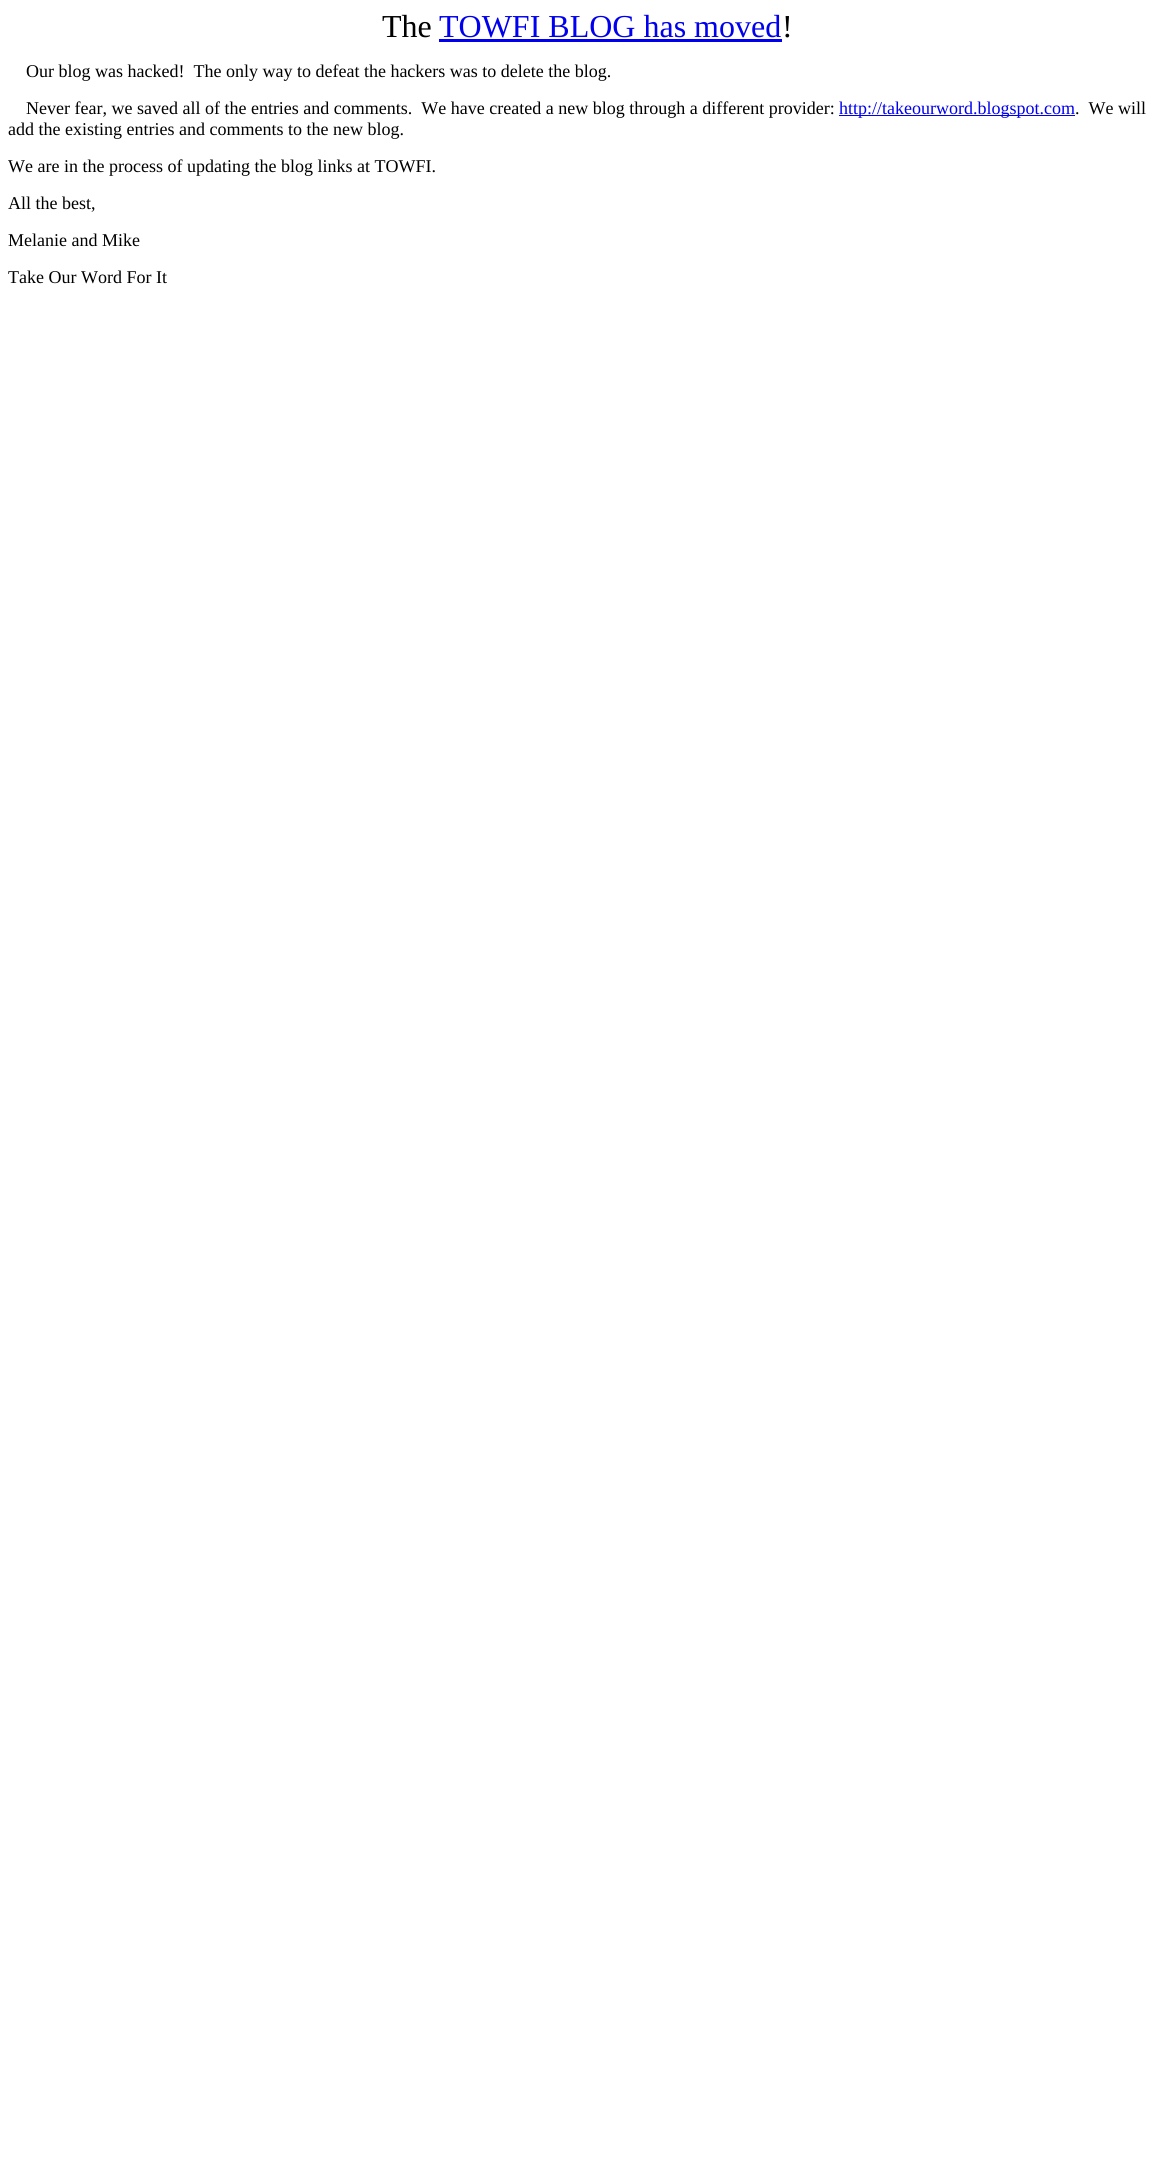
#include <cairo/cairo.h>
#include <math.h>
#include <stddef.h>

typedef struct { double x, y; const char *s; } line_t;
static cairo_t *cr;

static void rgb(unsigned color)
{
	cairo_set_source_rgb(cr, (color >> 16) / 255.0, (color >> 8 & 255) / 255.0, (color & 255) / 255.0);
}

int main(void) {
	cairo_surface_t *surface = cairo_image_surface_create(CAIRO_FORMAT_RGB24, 1174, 2175);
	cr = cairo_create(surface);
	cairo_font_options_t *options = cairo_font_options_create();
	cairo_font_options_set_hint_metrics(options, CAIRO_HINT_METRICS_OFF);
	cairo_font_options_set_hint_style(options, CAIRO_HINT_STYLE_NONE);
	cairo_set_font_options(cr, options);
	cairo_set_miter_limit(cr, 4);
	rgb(0xffffff);
	cairo_paint(cr);
	rgb(0x0000ee);
	cairo_rectangle(cr, 439, 39, 343, 3);
	cairo_fill(cr);
	cairo_rectangle(cr, 839, 115, 236, 1);
	cairo_fill(cr);
	cairo_select_font_face(cr, "Liberation Serif", CAIRO_FONT_SLANT_NORMAL, CAIRO_FONT_WEIGHT_NORMAL);
	cairo_set_font_size(cr, 32);
	rgb(0x000000);
	cairo_move_to(cr, 382, 37);
	cairo_show_text(cr, "The");
	rgb(0x0000ee);
	cairo_move_to(cr, 439, 37);
	cairo_show_text(cr, "TOWFI BLOG has moved");
	rgb(0x000000);
	cairo_move_to(cr, 782, 37);
	cairo_show_text(cr, "!");
	cairo_set_font_size(cr, 18);
	cairo_move_to(cr, 26, 77);
	cairo_show_text(cr, "Our blog was hacked!  The only way to defeat the hackers was to delete the blog.");
	cairo_move_to(cr, 26, 114);
	cairo_show_text(cr, "Never fear, we saved all of the entries and comments.  We have created a new blog through a different provider:");
	rgb(0x0000ee);
	cairo_move_to(cr, 839, 114);
	cairo_show_text(cr, "http://takeourword.blogspot.com");
	rgb(0x000000);
	{
		static const line_t items[] = {
			{1075, 114, ".  We will"},
			{8, 135, "add the existing entries and comments to the new blog."},
			{8, 172, "We are in the process of updating the blog links at TOWFI."},
			{8, 209, "All the best,"},
			{8, 246, "Melanie and Mike"},
			{8, 283, "Take Our Word For It"},
		};
		for (size_t i = 0; i < sizeof items / sizeof *items; i++) {
			cairo_move_to(cr, items[i].x, items[i].y);
			cairo_show_text(cr, items[i].s);
		}
	}
	cairo_surface_write_to_png(surface, "page.png");
	cairo_font_options_destroy(options);
	cairo_destroy(cr);
	cairo_surface_destroy(surface);
	return 0;
}
